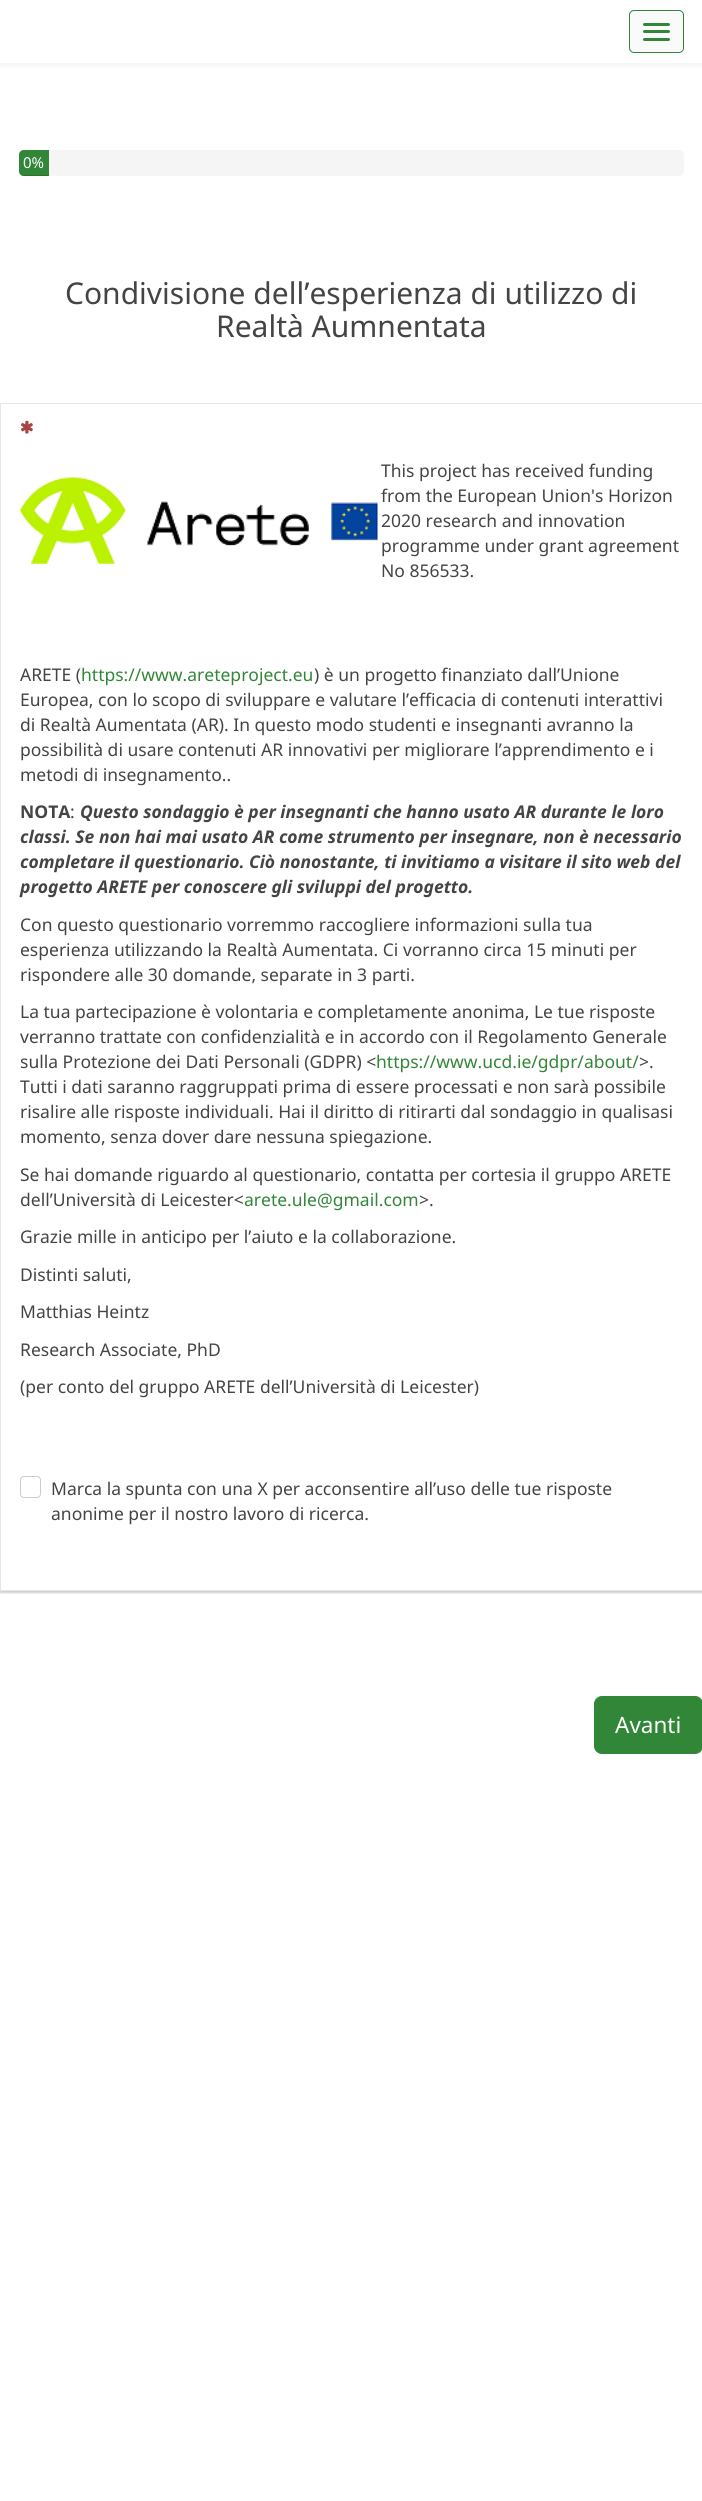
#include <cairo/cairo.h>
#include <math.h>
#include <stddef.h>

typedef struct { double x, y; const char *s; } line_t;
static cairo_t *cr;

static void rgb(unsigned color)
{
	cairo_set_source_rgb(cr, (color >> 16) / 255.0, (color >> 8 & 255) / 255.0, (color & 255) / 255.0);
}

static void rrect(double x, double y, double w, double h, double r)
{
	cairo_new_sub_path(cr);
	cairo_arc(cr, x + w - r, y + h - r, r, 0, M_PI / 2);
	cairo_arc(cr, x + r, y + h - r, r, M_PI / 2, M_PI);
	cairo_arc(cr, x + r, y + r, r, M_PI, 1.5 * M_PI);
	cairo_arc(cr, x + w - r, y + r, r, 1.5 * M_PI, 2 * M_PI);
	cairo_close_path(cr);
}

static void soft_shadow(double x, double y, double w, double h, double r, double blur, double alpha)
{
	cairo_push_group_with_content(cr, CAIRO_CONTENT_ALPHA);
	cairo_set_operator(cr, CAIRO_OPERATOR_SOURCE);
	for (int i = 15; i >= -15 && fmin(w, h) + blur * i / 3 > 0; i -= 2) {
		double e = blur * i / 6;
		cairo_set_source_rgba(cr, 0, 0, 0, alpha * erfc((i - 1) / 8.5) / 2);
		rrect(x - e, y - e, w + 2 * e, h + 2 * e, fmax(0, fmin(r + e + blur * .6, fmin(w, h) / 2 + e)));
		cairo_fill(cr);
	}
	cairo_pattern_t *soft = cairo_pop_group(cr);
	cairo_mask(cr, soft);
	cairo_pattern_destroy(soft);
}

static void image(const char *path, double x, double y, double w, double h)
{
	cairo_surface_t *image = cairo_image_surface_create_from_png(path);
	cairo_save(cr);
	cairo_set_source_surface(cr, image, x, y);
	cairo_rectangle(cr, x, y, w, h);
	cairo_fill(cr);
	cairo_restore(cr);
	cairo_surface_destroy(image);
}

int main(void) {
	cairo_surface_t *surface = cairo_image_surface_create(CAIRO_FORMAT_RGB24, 702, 2501);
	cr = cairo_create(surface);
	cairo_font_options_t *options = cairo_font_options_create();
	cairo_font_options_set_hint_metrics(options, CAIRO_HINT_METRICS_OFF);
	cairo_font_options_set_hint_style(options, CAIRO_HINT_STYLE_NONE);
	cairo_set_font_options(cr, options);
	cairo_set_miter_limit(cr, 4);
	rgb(0xffffff);
	cairo_paint(cr);
	rgb(0x84888a);
	soft_shadow(0, 4, 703, 62, 0, 2, 0.1);
	rgb(0xffffff);
	cairo_rectangle(cr, 0, 2, 702, 61);
	cairo_fill(cr);
	rgb(0xfafafa);
	rrect(629.5, 10.5, 54, 42, 4.5);
	cairo_fill_preserve(cr);
	rgb(0x328637);
	cairo_set_line_width(cr, 1);
	cairo_stroke(cr);
	rrect(643, 23, 27, 3, 1.5);
	cairo_fill(cr);
	rrect(643, 30, 27, 3, 1.5);
	cairo_fill(cr);
	rrect(643, 38, 27, 3, 1.5);
	cairo_fill(cr);
	rgb(0xf5f5f5);
	rrect(19, 150, 665, 26, 5);
	cairo_fill(cr);
	rgb(0x328637);
	cairo_new_path(cr);
	cairo_move_to(cr, 24, 150);
	cairo_line_to(cr, 49, 150);
	cairo_line_to(cr, 49, 176);
	cairo_line_to(cr, 24, 176);
	cairo_curve_to(cr, 21, 176, 19, 174, 19, 171);
	cairo_line_to(cr, 19, 155);
	cairo_curve_to(cr, 19, 152, 21, 150, 24, 150);
	cairo_close_path(cr);
	cairo_fill(cr);
	cairo_save(cr);
	rrect(19, 150, 665, 26, 5);
	cairo_clip(cr);
	cairo_set_source_rgba(cr, 0, 0, 0, 0.15);
	cairo_rectangle(cr, 19, 175, 30, 1);
	cairo_fill(cr);
	cairo_restore(cr);
	cairo_save(cr);
	cairo_rectangle(cr, 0, 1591, 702, 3);
	cairo_clip(cr);
	rgb(0x000000);
	soft_shadow(0, 404, 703, 1189, 0, 1, 0.2);
	cairo_restore(cr);
	cairo_rectangle(cr, 0.5, 403.5, 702, 1187);
	rgb(0xe6e6e6);
	cairo_stroke(cr);
	image("img/1.png", 21, 420, 12, 14);
	image("img/2.png", 20, 477, 289, 87);
	image("img/3.png", 331, 502, 47, 39);
	rrect(20.5, 1476.5, 20, 21, 3.5);
	rgb(0xcccccc);
	cairo_stroke(cr);
	rgb(0x328637);
	rrect(594.5, 1696.5, 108, 57, 7.5);
	cairo_fill_preserve(cr);
	cairo_stroke(cr);
	cairo_select_font_face(cr, "Noto Sans", CAIRO_FONT_SLANT_NORMAL, CAIRO_FONT_WEIGHT_NORMAL);
	cairo_set_font_size(cr, 15);
	rgb(0xffffff);
	cairo_move_to(cr, 23, 168);
	cairo_show_text(cr, "0%");
	cairo_set_font_size(cr, 30);
	rgb(0x444444);
	cairo_move_to(cr, 65, 304);
	cairo_show_text(cr, "Condivisione dell’esperienza di utilizzo di");
	cairo_move_to(cr, 216, 337);
	cairo_show_text(cr, "Realtà Aumnentata");
	cairo_set_font_size(cr, 17.5);
	{
		static const line_t items[] = {
			{381, 477, "This project has received funding"},
			{381, 502, "from the European Union's Horizon"},
			{381, 527, "2020 research and innovation"},
			{381, 552, "programme under grant agreement"},
			{381, 577, "No 856533."},
			{20, 681, "ARETE ("},
		};
		for (size_t i = 0; i < sizeof items / sizeof *items; i++) {
			cairo_move_to(cr, items[i].x, items[i].y);
			cairo_show_text(cr, items[i].s);
		}
	}
	rgb(0x328637);
	cairo_move_to(cr, 81, 681);
	cairo_show_text(cr, "https://www.areteproject.eu");
	rgb(0x444444);
	{
		static const line_t items[] = {
			{314, 681, ") è un progetto finanziato dall’Unione"},
			{20, 706, "Europea, con lo scopo di sviluppare e valutare l’efficacia di contenuti interattivi"},
			{20, 731, "di Realtà Aumentata (AR). In questo modo studenti e insegnanti avranno la"},
			{20, 756, "possibilità di usare contenuti AR innovativi per migliorare l’apprendimento e i"},
			{20, 781, "metodi di insegnamento.."},
		};
		for (size_t i = 0; i < sizeof items / sizeof *items; i++) {
			cairo_move_to(cr, items[i].x, items[i].y);
			cairo_show_text(cr, items[i].s);
		}
	}
	cairo_select_font_face(cr, "Noto Sans", CAIRO_FONT_SLANT_NORMAL, CAIRO_FONT_WEIGHT_BOLD);
	cairo_move_to(cr, 20, 818);
	cairo_show_text(cr, "NOTA");
	cairo_select_font_face(cr, "Noto Sans", CAIRO_FONT_SLANT_NORMAL, CAIRO_FONT_WEIGHT_NORMAL);
	cairo_move_to(cr, 70, 818);
	cairo_show_text(cr, ":");
	cairo_select_font_face(cr, "Noto Sans", CAIRO_FONT_SLANT_ITALIC, CAIRO_FONT_WEIGHT_BOLD);
	{
		static const line_t items[] = {
			{80, 818, "Questo sondaggio è per insegnanti che hanno usato AR durante le loro"},
			{20, 843, "classi. Se non hai mai usato AR come strumento per insegnare, non è necessario"},
			{20, 868, "completare il questionario. Ciò nonostante, ti invitiamo a visitare il sito web del"},
			{20, 893, "progetto ARETE per conoscere gli sviluppi del progetto."},
		};
		for (size_t i = 0; i < sizeof items / sizeof *items; i++) {
			cairo_move_to(cr, items[i].x, items[i].y);
			cairo_show_text(cr, items[i].s);
		}
	}
	cairo_select_font_face(cr, "Noto Sans", CAIRO_FONT_SLANT_NORMAL, CAIRO_FONT_WEIGHT_NORMAL);
	{
		static const line_t items[] = {
			{20, 931, "Con questo questionario vorremmo raccogliere informazioni sulla tua"},
			{20, 956, "esperienza utilizzando la Realtà Aumentata. Ci vorranno circa 15 minuti per"},
			{20, 981, "rispondere alle 30 domande, separate in 3 parti."},
			{20, 1018, "La tua partecipazione è volontaria e completamente anonima, Le tue risposte"},
			{20, 1043, "verranno trattate con confidenzialità e in accordo con il Regolamento Generale"},
			{20, 1068, "sulla Protezione dei Dati Personali (GDPR) <"},
		};
		for (size_t i = 0; i < sizeof items / sizeof *items; i++) {
			cairo_move_to(cr, items[i].x, items[i].y);
			cairo_show_text(cr, items[i].s);
		}
	}
	rgb(0x328637);
	cairo_move_to(cr, 376, 1068);
	cairo_show_text(cr, "https://www.ucd.ie/gdpr/about/");
	rgb(0x444444);
	{
		static const line_t items[] = {
			{639, 1068, ">."},
			{20, 1093, "Tutti i dati saranno raggruppati prima di essere processati e non sarà possibile"},
			{20, 1118, "risalire alle risposte individuali. Hai il diritto di ritirarti dal sondaggio in qualisasi"},
			{20, 1143, "momento, senza dover dare nessuna spiegazione."},
			{20, 1181, "Se hai domande riguardo al questionario, contatta per cortesia il gruppo ARETE"},
			{20, 1206, "dell’Università di Leicester<"},
		};
		for (size_t i = 0; i < sizeof items / sizeof *items; i++) {
			cairo_move_to(cr, items[i].x, items[i].y);
			cairo_show_text(cr, items[i].s);
		}
	}
	rgb(0x328637);
	cairo_move_to(cr, 244, 1206);
	cairo_show_text(cr, "arete.ule@gmail.com");
	rgb(0x444444);
	{
		static const line_t items[] = {
			{419, 1206, ">."},
			{20, 1243, "Grazie mille in anticipo per l’aiuto e la collaborazione."},
			{20, 1281, "Distinti saluti,"},
			{20, 1318, "Matthias Heintz"},
			{20, 1356, "Research Associate, PhD"},
			{20, 1393, "(per conto del gruppo ARETE dell’Università di Leicester)"},
			{51, 1495, "Marca la spunta con una X per acconsentire all’uso delle tue risposte"},
			{51, 1520, "anonime per il nostro lavoro di ricerca."},
		};
		for (size_t i = 0; i < sizeof items / sizeof *items; i++) {
			cairo_move_to(cr, items[i].x, items[i].y);
			cairo_show_text(cr, items[i].s);
		}
	}
	cairo_set_font_size(cr, 22.5);
	rgb(0xffffff);
	cairo_move_to(cr, 615, 1733);
	cairo_show_text(cr, "Avanti");
	cairo_surface_write_to_png(surface, "page.png");
	cairo_font_options_destroy(options);
	cairo_destroy(cr);
	cairo_surface_destroy(surface);
	return 0;
}
